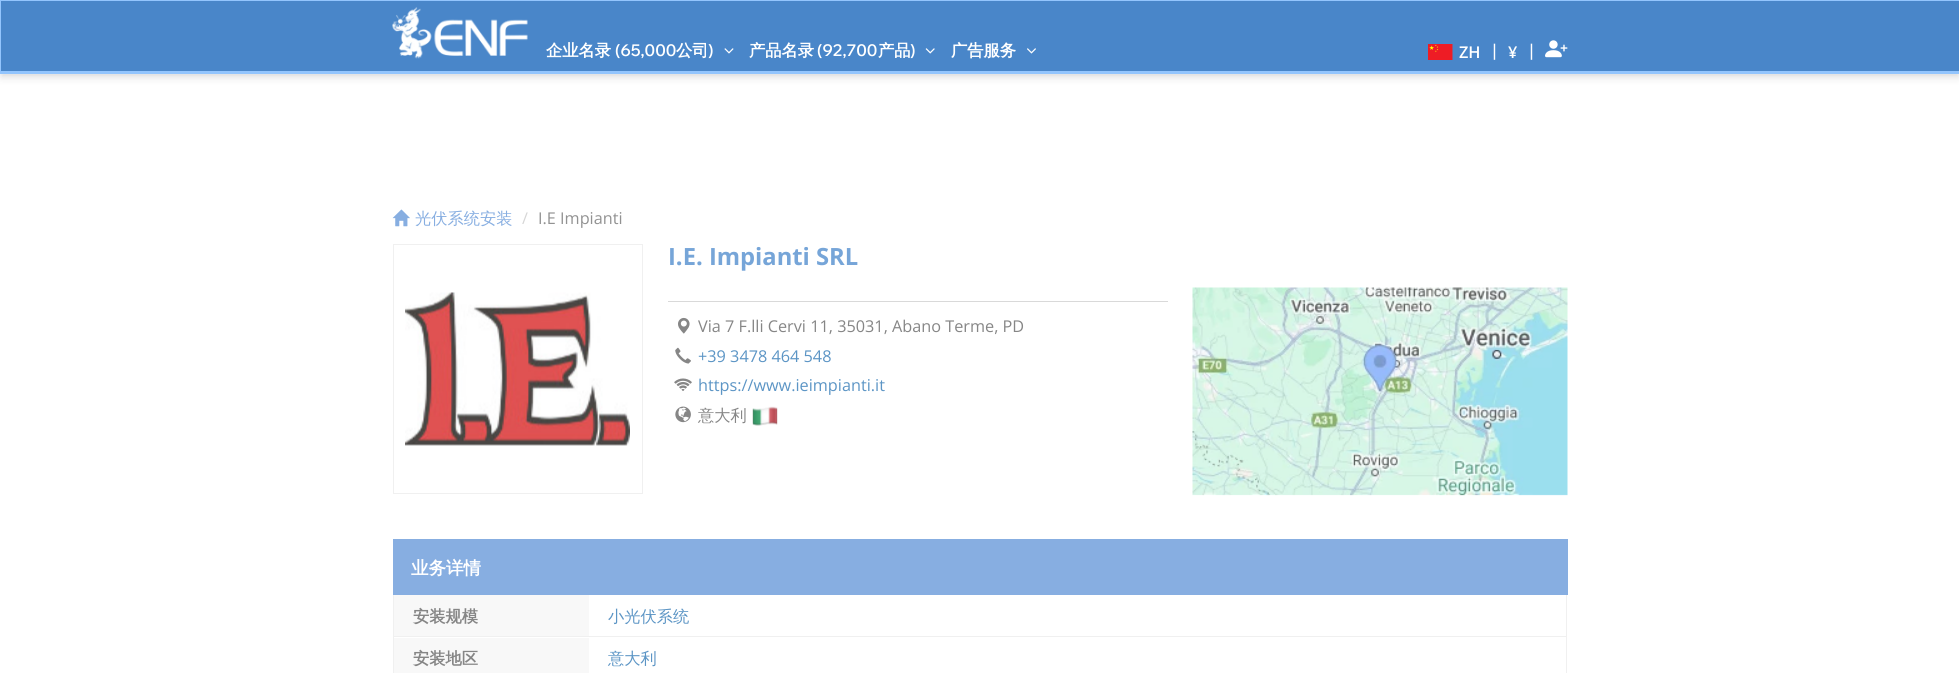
#include <cairo/cairo.h>
#include <math.h>
#include <stddef.h>

typedef struct { double x, y; const char *s; } line_t;
typedef struct { double x, y, w, h; unsigned color; } box_t;
static cairo_t *cr;

static void rgb(unsigned color)
{
	cairo_set_source_rgb(cr, (color >> 16) / 255.0, (color >> 8 & 255) / 255.0, (color & 255) / 255.0);
}

static void rrect(double x, double y, double w, double h, double r)
{
	cairo_new_sub_path(cr);
	cairo_arc(cr, x + w - r, y + h - r, r, 0, M_PI / 2);
	cairo_arc(cr, x + r, y + h - r, r, M_PI / 2, M_PI);
	cairo_arc(cr, x + r, y + r, r, M_PI, 1.5 * M_PI);
	cairo_arc(cr, x + w - r, y + r, r, 1.5 * M_PI, 2 * M_PI);
	cairo_close_path(cr);
}

static void soft_shadow(double x, double y, double w, double h, double r, double blur, double alpha)
{
	cairo_push_group_with_content(cr, CAIRO_CONTENT_ALPHA);
	cairo_set_operator(cr, CAIRO_OPERATOR_SOURCE);
	for (int i = 15; i >= -15 && fmin(w, h) + blur * i / 3 > 0; i -= 2) {
		double e = blur * i / 6;
		cairo_set_source_rgba(cr, 0, 0, 0, alpha * erfc((i - 1) / 8.5) / 2);
		rrect(x - e, y - e, w + 2 * e, h + 2 * e, fmax(0, fmin(r + e + blur * .6, fmin(w, h) / 2 + e)));
		cairo_fill(cr);
	}
	cairo_pattern_t *soft = cairo_pop_group(cr);
	cairo_mask(cr, soft);
	cairo_pattern_destroy(soft);
}

static void image(const char *path, double x, double y, double w, double h)
{
	cairo_surface_t *image = cairo_image_surface_create_from_png(path);
	cairo_save(cr);
	cairo_set_source_surface(cr, image, x, y);
	cairo_rectangle(cr, x, y, w, h);
	cairo_fill(cr);
	cairo_restore(cr);
	cairo_surface_destroy(image);
}

int main(void) {
	cairo_surface_t *surface = cairo_image_surface_create(CAIRO_FORMAT_RGB24, 1959, 673);
	cr = cairo_create(surface);
	cairo_font_options_t *options = cairo_font_options_create();
	cairo_font_options_set_hint_metrics(options, CAIRO_HINT_METRICS_OFF);
	cairo_font_options_set_hint_style(options, CAIRO_HINT_STYLE_NONE);
	cairo_set_font_options(cr, options);
	cairo_set_miter_limit(cr, 4);
	rgb(0xffffff);
	cairo_paint(cr);
	rgb(0x000000);
	soft_shadow(1, 4, 1958, 71, 0, 2.5, 0.06);
	soft_shadow(1, 6, 1958, 72, 0, 4, 0.1);
	{
		static const box_t items[] = {
			{1, 1, 1958, 70, 0x4986c9},
			{0, 0, 1959, 1, 0x93c5fd},
			{0, 71, 1959, 3, 0x93c5fd},
			{0, 0, 1, 74, 0x93c5fd},
		};
		for (size_t i = 0; i < sizeof items / sizeof *items; i++) {
			rgb(items[i].color);
			cairo_rectangle(cr, items[i].x, items[i].y, items[i].w, items[i].h);
			cairo_fill(cr);
		}
	}
	image("img/1.png", 392, 7, 136, 52);
	image("img/2.png", 724, 48, 10, 6);
	image("img/3.png", 925, 48, 10, 6);
	image("img/4.png", 1027, 48, 9, 6);
	image("img/5.png", 1428, 44, 25, 16);
	image("img/6.png", 1545, 40, 23, 18);
	image("img/7.png", 392, 209, 18, 18);
	cairo_rectangle(cr, 393.5, 244.5, 249, 249);
	rgb(0xf0f0f0);
	cairo_set_line_width(cr, 1);
	cairo_stroke(cr);
	image("img/8.png", 405, 292, 225, 154);
	rgb(0xd9d9d9);
	cairo_rectangle(cr, 668, 301, 500, 1);
	cairo_fill(cr);
	image("img/9.png", 678, 317, 12, 17);
	image("img/10.png", 675, 347, 16, 17);
	image("img/11.png", 674, 378, 18, 13);
	image("img/12.png", 675, 406, 16, 17);
	image("img/13.png", 752, 406, 26, 20);
	image("img/14.png", 1192, 287, 376, 209);
	{
		static const box_t items[] = {
			{393, 539, 1175, 56, 0x87aee1},
			{1566, 595, 1, 78, 0xf0f0f0},
			{393, 595, 1, 78, 0xf0f0f0},
			{394, 595, 195, 41, 0xf8f8f8},
			{394, 636, 1172, 1, 0xf0f0f0},
			{394, 638, 195, 35, 0xf8f8f8},
		};
		for (size_t i = 0; i < sizeof items / sizeof *items; i++) {
			rgb(items[i].color);
			cairo_rectangle(cr, items[i].x, items[i].y, items[i].w, items[i].h);
			cairo_fill(cr);
		}
	}
	cairo_select_font_face(cr, "WenQuanYi Zen Hei", CAIRO_FONT_SLANT_NORMAL, CAIRO_FONT_WEIGHT_BOLD);
	cairo_set_font_size(cr, 16.25);
	rgb(0xffffff);
	cairo_move_to(cr, 546, 56);
	cairo_show_text(cr, "企业名录");
	cairo_select_font_face(cr, "Wix Madefor Display SemiBold", CAIRO_FONT_SLANT_NORMAL, CAIRO_FONT_WEIGHT_NORMAL);
	cairo_move_to(cr, 615, 56);
	cairo_show_text(cr, "(65,000");
	cairo_select_font_face(cr, "WenQuanYi Zen Hei", CAIRO_FONT_SLANT_NORMAL, CAIRO_FONT_WEIGHT_BOLD);
	cairo_move_to(cr, 676, 56);
	cairo_show_text(cr, "公司");
	cairo_select_font_face(cr, "Wix Madefor Display SemiBold", CAIRO_FONT_SLANT_NORMAL, CAIRO_FONT_WEIGHT_NORMAL);
	cairo_move_to(cr, 708, 56);
	cairo_show_text(cr, ")");
	cairo_select_font_face(cr, "WenQuanYi Zen Hei", CAIRO_FONT_SLANT_NORMAL, CAIRO_FONT_WEIGHT_BOLD);
	cairo_move_to(cr, 749, 56);
	cairo_show_text(cr, "产品名录");
	cairo_select_font_face(cr, "Wix Madefor Display SemiBold", CAIRO_FONT_SLANT_NORMAL, CAIRO_FONT_WEIGHT_NORMAL);
	cairo_move_to(cr, 817, 56);
	cairo_show_text(cr, "(92,700");
	cairo_select_font_face(cr, "WenQuanYi Zen Hei", CAIRO_FONT_SLANT_NORMAL, CAIRO_FONT_WEIGHT_BOLD);
	cairo_move_to(cr, 878, 56);
	cairo_show_text(cr, "产品");
	cairo_select_font_face(cr, "Wix Madefor Display SemiBold", CAIRO_FONT_SLANT_NORMAL, CAIRO_FONT_WEIGHT_NORMAL);
	cairo_move_to(cr, 910, 56);
	cairo_show_text(cr, ")");
	cairo_select_font_face(cr, "WenQuanYi Zen Hei", CAIRO_FONT_SLANT_NORMAL, CAIRO_FONT_WEIGHT_BOLD);
	cairo_move_to(cr, 951, 56);
	cairo_show_text(cr, "广告服务");
	cairo_select_font_face(cr, "Open Sans SemiBold", CAIRO_FONT_SLANT_NORMAL, CAIRO_FONT_WEIGHT_NORMAL);
	{
		static const line_t items[] = {
			{1459, 58, "ZH"},
			{1490, 56, "|"},
			{1508, 58, "¥"},
			{1527, 56, "|"},
		};
		for (size_t i = 0; i < sizeof items / sizeof *items; i++) {
			cairo_move_to(cr, items[i].x, items[i].y);
			cairo_show_text(cr, items[i].s);
		}
	}
	cairo_select_font_face(cr, "WenQuanYi Zen Hei Medium", CAIRO_FONT_SLANT_NORMAL, CAIRO_FONT_WEIGHT_NORMAL);
	rgb(0x87aee1);
	cairo_move_to(cr, 415, 224);
	cairo_show_text(cr, "光伏系统安装");
	cairo_select_font_face(cr, "Open Sans", CAIRO_FONT_SLANT_NORMAL, CAIRO_FONT_WEIGHT_NORMAL);
	rgb(0xd6d6d6);
	cairo_move_to(cr, 522, 224);
	cairo_show_text(cr, "/");
	rgb(0x929292);
	cairo_move_to(cr, 538, 224);
	cairo_show_text(cr, "I.E Impianti");
	cairo_select_font_face(cr, "Open Sans", CAIRO_FONT_SLANT_NORMAL, CAIRO_FONT_WEIGHT_BOLD);
	cairo_set_font_size(cr, 23.75);
	rgb(0x76a5d8);
	cairo_move_to(cr, 668, 265);
	cairo_show_text(cr, "I.E. Impianti SRL");
	cairo_select_font_face(cr, "Open Sans", CAIRO_FONT_SLANT_NORMAL, CAIRO_FONT_WEIGHT_NORMAL);
	cairo_set_font_size(cr, 16.25);
	rgb(0x868686);
	cairo_move_to(cr, 698, 332);
	cairo_show_text(cr, "Via 7 F.lli Cervi 11, 35031, Abano Terme, PD");
	rgb(0x5c95c5);
	cairo_move_to(cr, 698, 362);
	cairo_show_text(cr, "+39 3478 464 548");
	cairo_move_to(cr, 698, 391);
	cairo_show_text(cr, "https://www.ieimpianti.it");
	cairo_select_font_face(cr, "WenQuanYi Zen Hei Medium", CAIRO_FONT_SLANT_NORMAL, CAIRO_FONT_WEIGHT_NORMAL);
	rgb(0x868686);
	cairo_move_to(cr, 698, 421);
	cairo_show_text(cr, "意大利");
	cairo_select_font_face(cr, "WenQuanYi Zen Hei", CAIRO_FONT_SLANT_NORMAL, CAIRO_FONT_WEIGHT_BOLD);
	cairo_set_font_size(cr, 17.5);
	rgb(0xffffff);
	cairo_move_to(cr, 411, 574);
	cairo_show_text(cr, "业务详情");
	cairo_set_font_size(cr, 16.25);
	rgb(0x868686);
	cairo_move_to(cr, 413, 622);
	cairo_show_text(cr, "安装规模");
	cairo_select_font_face(cr, "WenQuanYi Zen Hei Medium", CAIRO_FONT_SLANT_NORMAL, CAIRO_FONT_WEIGHT_NORMAL);
	rgb(0x5c95c5);
	cairo_move_to(cr, 608, 622);
	cairo_show_text(cr, "小光伏系统");
	cairo_select_font_face(cr, "WenQuanYi Zen Hei", CAIRO_FONT_SLANT_NORMAL, CAIRO_FONT_WEIGHT_BOLD);
	rgb(0x868686);
	cairo_move_to(cr, 413, 664);
	cairo_show_text(cr, "安装地区");
	cairo_select_font_face(cr, "WenQuanYi Zen Hei Medium", CAIRO_FONT_SLANT_NORMAL, CAIRO_FONT_WEIGHT_NORMAL);
	rgb(0x5c95c5);
	cairo_move_to(cr, 608, 664);
	cairo_show_text(cr, "意大利");
	cairo_surface_write_to_png(surface, "page.png");
	cairo_font_options_destroy(options);
	cairo_destroy(cr);
	cairo_surface_destroy(surface);
	return 0;
}
